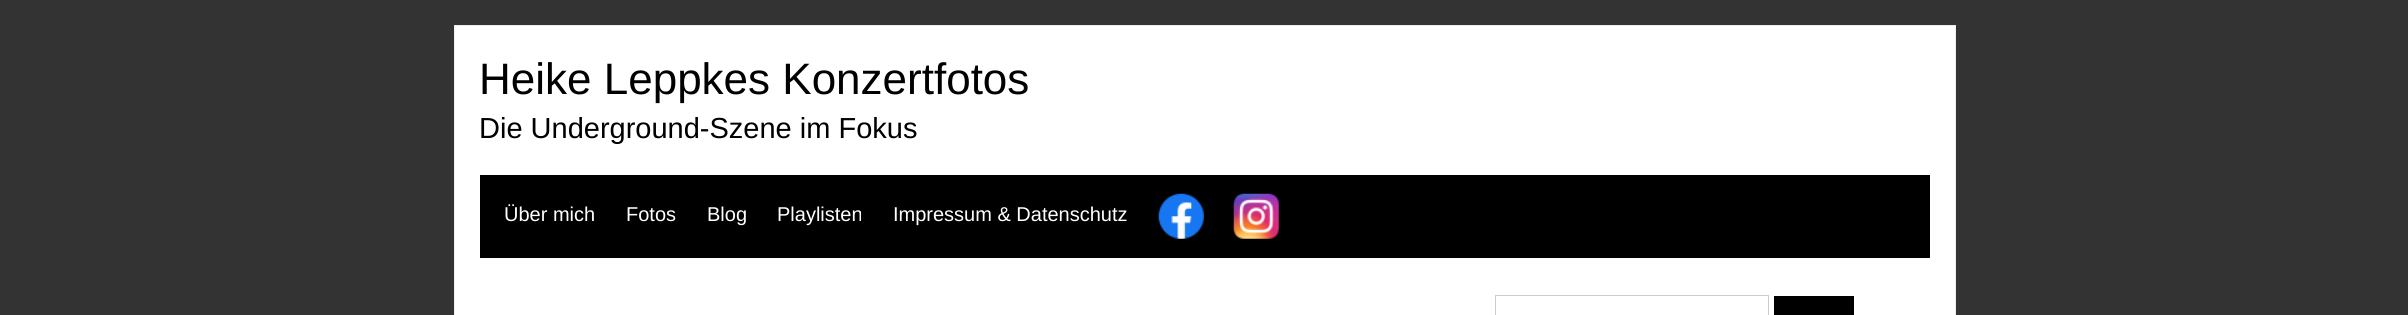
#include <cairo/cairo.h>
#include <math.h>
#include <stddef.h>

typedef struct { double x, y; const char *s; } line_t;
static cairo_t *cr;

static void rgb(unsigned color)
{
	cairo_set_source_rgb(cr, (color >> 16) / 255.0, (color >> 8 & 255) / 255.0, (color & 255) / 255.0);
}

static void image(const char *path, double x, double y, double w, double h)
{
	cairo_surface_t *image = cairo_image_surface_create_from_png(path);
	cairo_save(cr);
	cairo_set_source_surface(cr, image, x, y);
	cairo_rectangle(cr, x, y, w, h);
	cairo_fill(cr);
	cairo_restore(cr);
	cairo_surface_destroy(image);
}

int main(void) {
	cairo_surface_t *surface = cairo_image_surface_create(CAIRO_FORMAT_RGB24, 2408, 315);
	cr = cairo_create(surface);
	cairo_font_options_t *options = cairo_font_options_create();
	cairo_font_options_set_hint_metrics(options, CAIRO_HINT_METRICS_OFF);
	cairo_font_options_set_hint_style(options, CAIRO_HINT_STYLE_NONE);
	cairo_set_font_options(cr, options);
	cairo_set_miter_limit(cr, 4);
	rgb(0x333333);
	cairo_paint(cr);
	rgb(0xffffff);
	cairo_rectangle(cr, 454.5, 25.5, 1501, 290);
	cairo_fill_preserve(cr);
	rgb(0xeeeeee);
	cairo_set_line_width(cr, 1);
	cairo_stroke(cr);
	rgb(0x000000);
	cairo_rectangle(cr, 480, 175, 1450, 83);
	cairo_fill(cr);
	image("img/1.png", 1158, 193, 46, 46);
	image("img/2.png", 1233, 193, 46, 46);
	cairo_rectangle(cr, 1495.5, 295.5, 273, 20);
	rgb(0xcccccc);
	cairo_stroke(cr);
	rgb(0x000000);
	cairo_rectangle(cr, 1774, 296, 80, 19);
	cairo_fill(cr);
	cairo_select_font_face(cr, "Liberation Sans", CAIRO_FONT_SLANT_NORMAL, CAIRO_FONT_WEIGHT_NORMAL);
	cairo_set_font_size(cr, 44);
	cairo_move_to(cr, 479, 94);
	cairo_show_text(cr, "Heike Leppkes Konzertfotos");
	cairo_set_font_size(cr, 29);
	cairo_move_to(cr, 479, 138);
	cairo_show_text(cr, "Die Underground-Szene im Fokus");
	cairo_set_font_size(cr, 20);
	rgb(0xffffff);
	{
		static const line_t items[] = {
			{504, 221, "Über mich"},
			{626, 221, "Fotos"},
			{707, 221, "Blog"},
			{777, 221, "Playlisten"},
			{893, 221, "Impressum & Datenschutz"},
		};
		for (size_t i = 0; i < sizeof items / sizeof *items; i++) {
			cairo_move_to(cr, items[i].x, items[i].y);
			cairo_show_text(cr, items[i].s);
		}
	}
	cairo_surface_write_to_png(surface, "page.png");
	cairo_font_options_destroy(options);
	cairo_destroy(cr);
	cairo_surface_destroy(surface);
	return 0;
}
